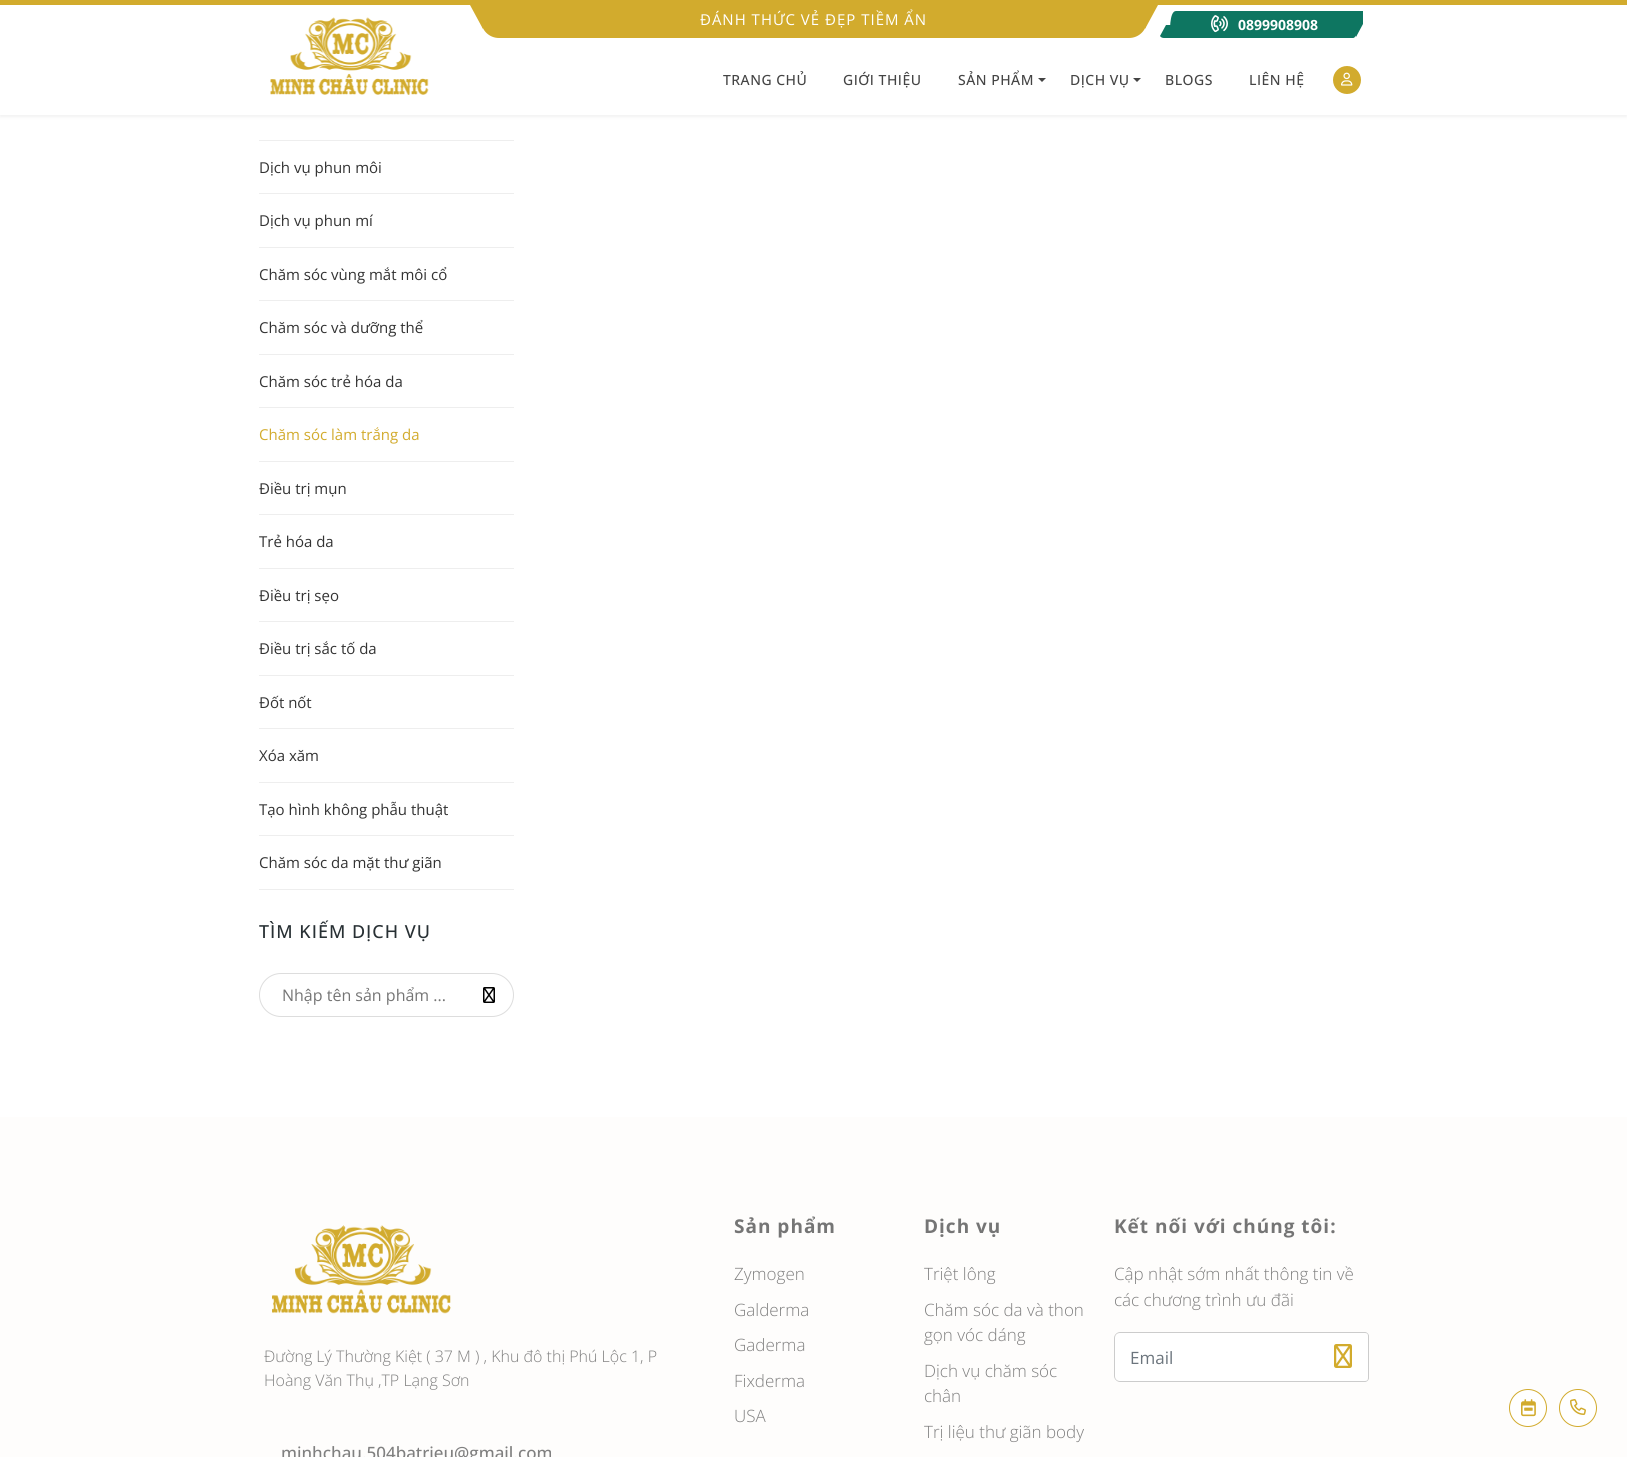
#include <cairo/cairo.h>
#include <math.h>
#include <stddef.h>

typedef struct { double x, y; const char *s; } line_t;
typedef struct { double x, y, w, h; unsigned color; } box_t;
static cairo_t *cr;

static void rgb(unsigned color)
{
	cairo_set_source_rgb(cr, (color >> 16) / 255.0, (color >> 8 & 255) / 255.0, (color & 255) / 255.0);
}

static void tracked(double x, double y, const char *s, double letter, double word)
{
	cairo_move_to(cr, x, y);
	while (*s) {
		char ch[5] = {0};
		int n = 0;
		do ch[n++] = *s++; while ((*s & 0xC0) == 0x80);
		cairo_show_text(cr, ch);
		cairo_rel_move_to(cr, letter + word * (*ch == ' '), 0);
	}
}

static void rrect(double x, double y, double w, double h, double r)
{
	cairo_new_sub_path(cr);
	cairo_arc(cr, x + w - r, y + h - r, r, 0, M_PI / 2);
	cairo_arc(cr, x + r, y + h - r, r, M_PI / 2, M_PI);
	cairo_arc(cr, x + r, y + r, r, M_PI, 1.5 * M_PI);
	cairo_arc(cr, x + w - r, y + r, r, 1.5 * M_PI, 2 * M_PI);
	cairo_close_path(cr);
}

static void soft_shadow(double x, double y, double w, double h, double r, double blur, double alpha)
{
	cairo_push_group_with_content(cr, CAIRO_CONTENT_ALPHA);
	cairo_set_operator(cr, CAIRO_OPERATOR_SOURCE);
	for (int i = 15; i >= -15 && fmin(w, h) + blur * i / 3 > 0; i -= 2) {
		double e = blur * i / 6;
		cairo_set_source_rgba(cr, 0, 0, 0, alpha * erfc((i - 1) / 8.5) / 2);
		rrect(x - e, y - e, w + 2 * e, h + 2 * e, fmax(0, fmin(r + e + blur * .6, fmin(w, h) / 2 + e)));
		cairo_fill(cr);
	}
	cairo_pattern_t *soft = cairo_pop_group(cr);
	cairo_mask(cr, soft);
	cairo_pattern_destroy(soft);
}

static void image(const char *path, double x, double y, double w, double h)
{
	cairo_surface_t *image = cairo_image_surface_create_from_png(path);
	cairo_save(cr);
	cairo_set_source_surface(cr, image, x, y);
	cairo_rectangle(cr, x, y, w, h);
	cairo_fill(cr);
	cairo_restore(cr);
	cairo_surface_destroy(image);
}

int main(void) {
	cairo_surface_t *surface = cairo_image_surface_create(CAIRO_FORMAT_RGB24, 1627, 1457);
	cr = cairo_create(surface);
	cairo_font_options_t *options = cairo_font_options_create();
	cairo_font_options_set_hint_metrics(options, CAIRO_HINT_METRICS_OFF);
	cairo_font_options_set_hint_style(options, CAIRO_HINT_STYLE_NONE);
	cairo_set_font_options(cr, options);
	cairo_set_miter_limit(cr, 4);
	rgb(0xffffff);
	cairo_paint(cr);
	rgb(0x606060);
	soft_shadow(0, 2, 1627, 115, 0, 1.5, 0.09);
	rgb(0xffffff);
	cairo_rectangle(cr, 0, 5, 1627, 110);
	cairo_fill(cr);
	rgb(0xd2ab2d);
	cairo_rectangle(cr, 0, 0, 1627, 5);
	cairo_fill(cr);
	cairo_new_path(cr);
	cairo_move_to(cr, 481, 5);
	cairo_line_to(cr, 1147, 5);
	cairo_line_to(cr, 1147, 20);
	cairo_curve_to(cr, 1147, 30, 1139, 38, 1129, 38);
	cairo_line_to(cr, 499, 38);
	cairo_curve_to(cr, 489, 38, 481, 30, 481, 20);
	cairo_close_path(cr);
	cairo_fill(cr);
	cairo_new_path(cr);
	cairo_move_to(cr, 483, 5);
	cairo_line_to(cr, 483, 29);
	cairo_line_to(cr, 470, 5);
	cairo_close_path(cr);
	cairo_fill(cr);
	cairo_new_path(cr);
	cairo_move_to(cr, 1145, 29);
	cairo_line_to(cr, 1145, 5);
	cairo_line_to(cr, 1158, 5);
	cairo_close_path(cr);
	cairo_fill(cr);
	rgb(0x0e7661);
	cairo_new_path(cr);
	cairo_move_to(cr, 1176, 11);
	cairo_line_to(cr, 1359, 11);
	cairo_line_to(cr, 1359, 22);
	cairo_curve_to(cr, 1359, 31, 1356, 38, 1353, 38);
	cairo_line_to(cr, 1170, 38);
	cairo_curve_to(cr, 1170, 33, 1169, 11, 1176, 11);
	cairo_close_path(cr);
	cairo_fill(cr);
	cairo_new_path(cr);
	cairo_move_to(cr, 1173, 38);
	cairo_line_to(cr, 1173, 25);
	cairo_line_to(cr, 1166, 25);
	cairo_line_to(cr, 1160, 36);
	cairo_curve_to(cr, 1161, 37.5, 1162.5, 38, 1164, 38);
	cairo_close_path(cr);
	cairo_fill(cr);
	image("img/1.png", 1211, 15, 17, 18);
	cairo_new_path(cr);
	cairo_move_to(cr, 1356, 11);
	cairo_line_to(cr, 1356, 37);
	cairo_line_to(cr, 1363, 24);
	cairo_line_to(cr, 1363, 11);
	cairo_close_path(cr);
	cairo_fill(cr);
	image("img/2.png", 270, 17, 159, 78);
	rgb(0x444444);
	cairo_new_path(cr);
	cairo_move_to(cr, 1038, 78);
	cairo_line_to(cr, 1046, 78);
	cairo_line_to(cr, 1042, 82);
	cairo_close_path(cr);
	cairo_fill(cr);
	cairo_new_path(cr);
	cairo_move_to(cr, 1133, 78);
	cairo_line_to(cr, 1141, 78);
	cairo_line_to(cr, 1137, 82);
	cairo_close_path(cr);
	cairo_fill(cr);
	rgb(0xd2ab2d);
	cairo_arc(cr, 1347, 80, 14, 0, 2 * M_PI);
	cairo_fill(cr);
	image("img/3.png", 1341, 72, 12, 14);
	{
		static const box_t items[] = {
			{259, 140, 255, 1, 0xeeeeee},
			{259, 193, 255, 1, 0xeeeeee},
			{259, 247, 255, 1, 0xeeeeee},
			{259, 300, 255, 1, 0xeeeeee},
			{259, 354, 255, 1, 0xeeeeee},
			{259, 407, 255, 1, 0xeeeeee},
			{259, 461, 255, 1, 0xeeeeee},
			{259, 514, 255, 1, 0xeeeeee},
			{259, 568, 255, 1, 0xeeeeee},
			{259, 621, 255, 1, 0xeeeeee},
			{259, 675, 255, 1, 0xeeeeee},
			{259, 728, 255, 1, 0xeeeeee},
			{259, 782, 255, 1, 0xeeeeee},
			{259, 835, 255, 1, 0xeeeeee},
			{259, 889, 255, 1, 0xeeeeee},
		};
		for (size_t i = 0; i < sizeof items / sizeof *items; i++) {
			rgb(items[i].color);
			cairo_rectangle(cr, items[i].x, items[i].y, items[i].w, items[i].h);
			cairo_fill(cr);
		}
	}
	rrect(259.5, 973.5, 254, 43, 21.5);
	rgb(0xdddddd);
	cairo_set_line_width(cr, 1);
	cairo_stroke(cr);
	image("img/4.png", 483, 987, 12, 16);
	rgb(0xfefdfc);
	cairo_rectangle(cr, 0, 1117, 1627, 340);
	cairo_fill(cr);
	image("img/5.png", 272, 1225, 179, 89);
	rgb(0xffffff);
	cairo_new_path(cr);
	cairo_move_to(cr, 1120, 1333);
	cairo_line_to(cr, 1324, 1333);
	cairo_line_to(cr, 1324, 1381);
	cairo_line_to(cr, 1120, 1381);
	cairo_curve_to(cr, 1117, 1381, 1115, 1379, 1115, 1376);
	cairo_line_to(cr, 1115, 1338);
	cairo_curve_to(cr, 1115, 1335, 1117, 1333, 1120, 1333);
	cairo_close_path(cr);
	cairo_fill(cr);
	rgb(0xcccccc);
	cairo_set_fill_rule(cr, CAIRO_FILL_RULE_EVEN_ODD);
	cairo_new_path(cr);
	cairo_move_to(cr, 1120, 1332);
	cairo_line_to(cr, 1324, 1332);
	cairo_line_to(cr, 1324, 1382);
	cairo_line_to(cr, 1120, 1382);
	cairo_curve_to(cr, 1117, 1382, 1114, 1379, 1114, 1376);
	cairo_line_to(cr, 1114, 1338);
	cairo_curve_to(cr, 1114, 1335, 1117, 1332, 1120, 1332);
	cairo_close_path(cr);
	cairo_move_to(cr, 1120, 1333);
	cairo_line_to(cr, 1324, 1333);
	cairo_line_to(cr, 1324, 1381);
	cairo_line_to(cr, 1120, 1381);
	cairo_curve_to(cr, 1117, 1381, 1115, 1379, 1115, 1376);
	cairo_line_to(cr, 1115, 1338);
	cairo_curve_to(cr, 1115, 1335, 1117, 1333, 1120, 1333);
	cairo_close_path(cr);
	cairo_fill(cr);
	rgb(0xffffff);
	cairo_new_path(cr);
	cairo_move_to(cr, 1324, 1332);
	cairo_line_to(cr, 1365, 1332);
	cairo_curve_to(cr, 1367, 1332, 1369, 1334, 1369, 1336);
	cairo_line_to(cr, 1369, 1378);
	cairo_curve_to(cr, 1369, 1380, 1367, 1382, 1365, 1382);
	cairo_line_to(cr, 1324, 1382);
	cairo_close_path(cr);
	cairo_fill(cr);
	rgb(0xcccccc);
	cairo_new_path(cr);
	cairo_move_to(cr, 1324, 1332);
	cairo_line_to(cr, 1365, 1332);
	cairo_curve_to(cr, 1367, 1332, 1369, 1334, 1369, 1336);
	cairo_line_to(cr, 1369, 1378);
	cairo_curve_to(cr, 1369, 1380, 1367, 1382, 1365, 1382);
	cairo_line_to(cr, 1324, 1382);
	cairo_close_path(cr);
	cairo_move_to(cr, 1324, 1333);
	cairo_line_to(cr, 1365, 1333);
	cairo_curve_to(cr, 1367, 1333, 1368, 1334, 1368, 1336);
	cairo_line_to(cr, 1368, 1378);
	cairo_curve_to(cr, 1368, 1380, 1367, 1381, 1365, 1381);
	cairo_line_to(cr, 1324, 1381);
	cairo_close_path(cr);
	cairo_fill(cr);
	image("img/6.png", 1334, 1344, 18, 24);
	rgb(0xffffff);
	cairo_arc(cr, 1528, 1408, 18.5, 0, 2 * M_PI);
	cairo_fill_preserve(cr);
	rgb(0xd2ab2d);
	cairo_stroke(cr);
	image("img/7.png", 1521, 1399, 15, 18);
	rgb(0xffffff);
	cairo_arc(cr, 1578, 1408, 18.5, 0, 2 * M_PI);
	cairo_fill_preserve(cr);
	rgb(0xd2ab2d);
	cairo_stroke(cr);
	image("img/8.png", 1570, 1399, 16, 16);
	cairo_select_font_face(cr, "Open Sans", CAIRO_FONT_SLANT_NORMAL, CAIRO_FONT_WEIGHT_NORMAL);
	cairo_set_font_size(cr, 15);
	rgb(0xffffff);
	tracked(700, 25, "ĐÁNH THỨC VẺ ĐẸP TIỀM ẨN", 1, 0);
	cairo_select_font_face(cr, "Open Sans", CAIRO_FONT_SLANT_NORMAL, CAIRO_FONT_WEIGHT_BOLD);
	cairo_set_font_size(cr, 14);
	cairo_move_to(cr, 1238, 30);
	cairo_show_text(cr, "0899908908");
	cairo_select_font_face(cr, "Open Sans Medium", CAIRO_FONT_SLANT_NORMAL, CAIRO_FONT_WEIGHT_NORMAL);
	rgb(0x444444);
	{
		static const line_t items[] = {
			{723, 85, "TRANG CHỦ"},
			{843, 85, "GIỚI THIỆU"},
			{958, 85, "SẢN PHẨM"},
			{1070, 85, "DỊCH VỤ"},
			{1165, 85, "BLOGS"},
			{1249, 85, "LIÊN HỆ"},
		};
		for (size_t i = 0; i < sizeof items / sizeof *items; i++) {
			tracked(items[i].x, items[i].y, items[i].s, 0.5, 0);
		}
	}
	cairo_select_font_face(cr, "Open Sans", CAIRO_FONT_SLANT_NORMAL, CAIRO_FONT_WEIGHT_NORMAL);
	cairo_set_font_size(cr, 15);
	rgb(0x333333);
	{
		static const line_t items[] = {
			{259, 173, "Dịch vụ phun môi"},
			{259, 226, "Dịch vụ phun mí"},
			{259, 280, "Chăm sóc vùng mắt môi cổ"},
			{259, 333, "Chăm sóc và dưỡng thể"},
			{259, 387, "Chăm sóc trẻ hóa da"},
		};
		for (size_t i = 0; i < sizeof items / sizeof *items; i++) {
			cairo_move_to(cr, items[i].x, items[i].y);
			cairo_show_text(cr, items[i].s);
		}
	}
	rgb(0xd2ab2d);
	cairo_move_to(cr, 259, 440);
	cairo_show_text(cr, "Chăm sóc làm trắng da");
	rgb(0x333333);
	{
		static const line_t items[] = {
			{259, 494, "Điều trị mụn"},
			{259, 547, "Trẻ hóa da"},
			{259, 601, "Điều trị sẹo"},
			{259, 654, "Điều trị sắc tố da"},
			{259, 708, "Đốt nốt"},
			{259, 761, "Xóa xăm"},
			{259, 815, "Tạo hình không phẫu thuật"},
			{259, 868, "Chăm sóc da mặt thư giãn"},
		};
		for (size_t i = 0; i < sizeof items / sizeof *items; i++) {
			cairo_move_to(cr, items[i].x, items[i].y);
			cairo_show_text(cr, items[i].s);
		}
	}
	cairo_select_font_face(cr, "Open Sans Medium", CAIRO_FONT_SLANT_NORMAL, CAIRO_FONT_WEIGHT_NORMAL);
	cairo_set_font_size(cr, 18);
	rgb(0x283034);
	tracked(259, 938, "TÌM KIẾM DỊCH VỤ", 1, 0);
	cairo_select_font_face(cr, "Open Sans", CAIRO_FONT_SLANT_NORMAL, CAIRO_FONT_WEIGHT_NORMAL);
	cairo_set_font_size(cr, 16);
	rgb(0x757575);
	cairo_move_to(cr, 282, 1001);
	cairo_show_text(cr, "Nhập tên sản phẩm ...");
	cairo_select_font_face(cr, "Open Sans Light", CAIRO_FONT_SLANT_NORMAL, CAIRO_FONT_WEIGHT_NORMAL);
	rgb(0x808080);
	cairo_move_to(cr, 264, 1362);
	cairo_show_text(cr, "Đường Lý Thường Kiệt ( 37 M ) , Khu đô thị Phú Lộc 1, P");
	cairo_move_to(cr, 264, 1386);
	cairo_show_text(cr, "Hoàng Văn Thụ ,TP Lạng Sơn");
	cairo_select_font_face(cr, "Open Sans Medium", CAIRO_FONT_SLANT_NORMAL, CAIRO_FONT_WEIGHT_NORMAL);
	cairo_set_font_size(cr, 17);
	cairo_move_to(cr, 281, 1459);
	cairo_show_text(cr, "minhchau.504batrieu@gmail.com");
	cairo_select_font_face(cr, "Open Sans", CAIRO_FONT_SLANT_NORMAL, CAIRO_FONT_WEIGHT_BOLD);
	cairo_set_font_size(cr, 19);
	rgb(0x757575);
	tracked(734, 1233, "Sản phẩm", 1, 0);
	cairo_select_font_face(cr, "Open Sans Light", CAIRO_FONT_SLANT_NORMAL, CAIRO_FONT_WEIGHT_NORMAL);
	cairo_set_font_size(cr, 17);
	rgb(0x808080);
	{
		static const line_t items[] = {
			{734, 1280, "Zymogen"},
			{734, 1316, "Galderma"},
			{734, 1351, "Gaderma"},
			{734, 1387, "Fixderma"},
			{734, 1422, "USA"},
		};
		for (size_t i = 0; i < sizeof items / sizeof *items; i++) {
			cairo_move_to(cr, items[i].x, items[i].y);
			cairo_show_text(cr, items[i].s);
		}
	}
	cairo_select_font_face(cr, "Open Sans", CAIRO_FONT_SLANT_NORMAL, CAIRO_FONT_WEIGHT_BOLD);
	cairo_set_font_size(cr, 19);
	rgb(0x757575);
	tracked(924, 1233, "Dịch vụ", 1, 0);
	cairo_select_font_face(cr, "Open Sans Light", CAIRO_FONT_SLANT_NORMAL, CAIRO_FONT_WEIGHT_NORMAL);
	cairo_set_font_size(cr, 17);
	rgb(0x808080);
	{
		static const line_t items[] = {
			{924, 1280, "Triệt lông"},
			{924, 1316, "Chăm sóc da và thon"},
			{924, 1341, "gọn vóc dáng"},
			{924, 1377, "Dịch vụ chăm sóc"},
			{924, 1402, "chân"},
			{924, 1438, "Trị liệu thư giãn body"},
		};
		for (size_t i = 0; i < sizeof items / sizeof *items; i++) {
			cairo_move_to(cr, items[i].x, items[i].y);
			cairo_show_text(cr, items[i].s);
		}
	}
	cairo_select_font_face(cr, "Open Sans", CAIRO_FONT_SLANT_NORMAL, CAIRO_FONT_WEIGHT_BOLD);
	cairo_set_font_size(cr, 19);
	rgb(0x757575);
	tracked(1114, 1233, "Kết nối với chúng tôi:", 1, 0);
	cairo_select_font_face(cr, "Open Sans Light", CAIRO_FONT_SLANT_NORMAL, CAIRO_FONT_WEIGHT_NORMAL);
	cairo_set_font_size(cr, 17);
	rgb(0x808080);
	cairo_move_to(cr, 1114, 1280);
	cairo_show_text(cr, "Cập nhật sớm nhất thông tin về");
	cairo_move_to(cr, 1114, 1306);
	cairo_show_text(cr, "các chương trình ưu đãi");
	cairo_select_font_face(cr, "Open Sans", CAIRO_FONT_SLANT_NORMAL, CAIRO_FONT_WEIGHT_NORMAL);
	rgb(0x6c757d);
	cairo_move_to(cr, 1130, 1364);
	cairo_show_text(cr, "Email");
	cairo_surface_write_to_png(surface, "page.png");
	cairo_font_options_destroy(options);
	cairo_destroy(cr);
	cairo_surface_destroy(surface);
	return 0;
}
